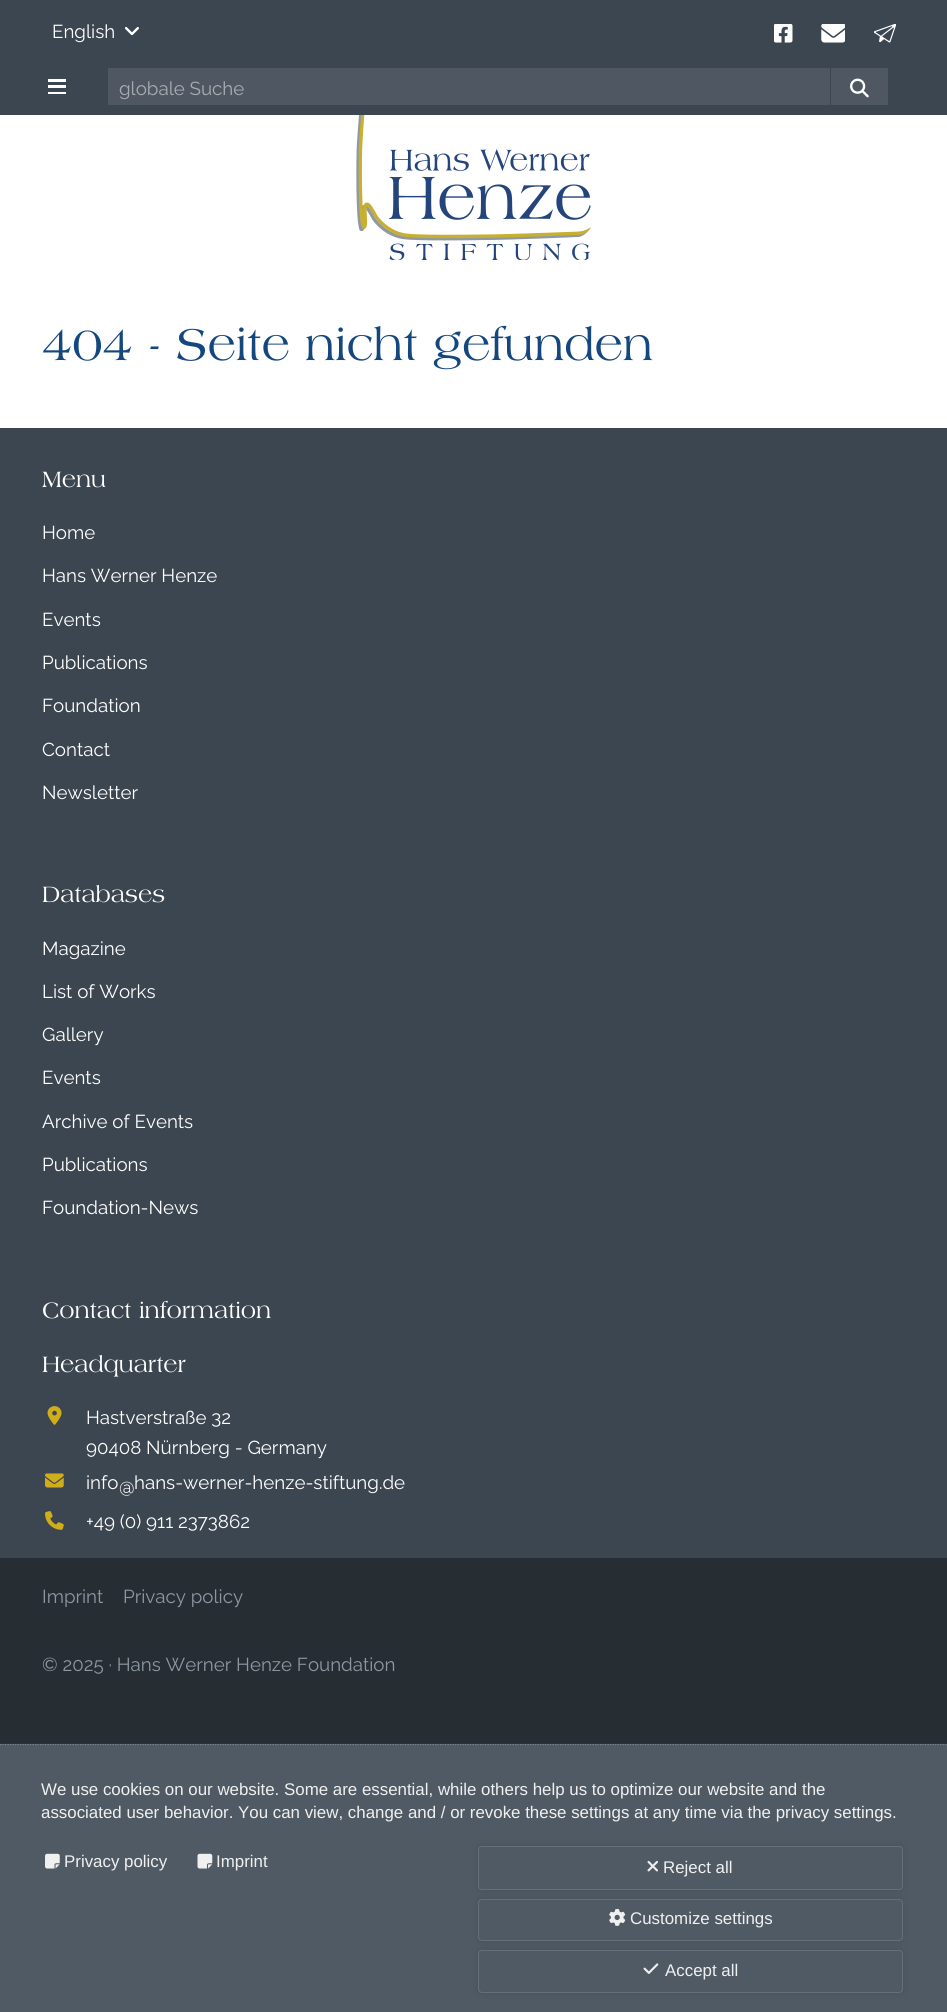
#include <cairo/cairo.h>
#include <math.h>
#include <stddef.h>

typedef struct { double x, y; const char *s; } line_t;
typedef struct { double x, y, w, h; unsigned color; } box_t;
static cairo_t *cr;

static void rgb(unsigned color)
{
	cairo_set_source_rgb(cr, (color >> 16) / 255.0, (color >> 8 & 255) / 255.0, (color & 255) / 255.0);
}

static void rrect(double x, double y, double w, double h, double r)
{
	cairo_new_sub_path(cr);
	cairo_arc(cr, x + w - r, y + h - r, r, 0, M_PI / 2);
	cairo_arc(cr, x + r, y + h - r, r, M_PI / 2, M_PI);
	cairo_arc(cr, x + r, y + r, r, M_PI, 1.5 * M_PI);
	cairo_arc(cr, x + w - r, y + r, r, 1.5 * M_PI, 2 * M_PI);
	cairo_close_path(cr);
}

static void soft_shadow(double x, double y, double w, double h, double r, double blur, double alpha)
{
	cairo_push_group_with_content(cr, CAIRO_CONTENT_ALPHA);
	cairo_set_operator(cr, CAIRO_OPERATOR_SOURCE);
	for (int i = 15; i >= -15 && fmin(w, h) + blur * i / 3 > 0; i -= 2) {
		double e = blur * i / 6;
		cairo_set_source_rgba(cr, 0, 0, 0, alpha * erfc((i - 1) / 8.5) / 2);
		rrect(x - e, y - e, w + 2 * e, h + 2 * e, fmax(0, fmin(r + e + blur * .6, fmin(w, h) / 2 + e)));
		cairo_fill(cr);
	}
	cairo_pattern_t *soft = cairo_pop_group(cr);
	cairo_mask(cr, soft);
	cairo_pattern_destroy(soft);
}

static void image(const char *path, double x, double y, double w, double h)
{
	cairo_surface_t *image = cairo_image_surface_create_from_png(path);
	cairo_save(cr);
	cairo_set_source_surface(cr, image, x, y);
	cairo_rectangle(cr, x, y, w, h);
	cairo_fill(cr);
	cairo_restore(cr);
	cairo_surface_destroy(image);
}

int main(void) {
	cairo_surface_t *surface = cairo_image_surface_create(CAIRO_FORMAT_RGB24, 947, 2012);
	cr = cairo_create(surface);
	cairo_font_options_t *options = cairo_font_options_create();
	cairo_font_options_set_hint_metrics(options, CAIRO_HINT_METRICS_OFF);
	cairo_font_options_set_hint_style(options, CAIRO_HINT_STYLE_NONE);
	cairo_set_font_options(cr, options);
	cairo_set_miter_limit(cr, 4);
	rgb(0xffffff);
	cairo_paint(cr);
	rgb(0x3c4650);
	cairo_rectangle(cr, 0, 0, 947, 115);
	cairo_fill(cr);
	image("img/1.png", 124, 27, 15, 9);
	image("img/2.png", 774, 24, 19, 19);
	image("img/3.png", 821, 24, 24, 19);
	image("img/4.png", 874, 24, 22, 19);
	{
		static const box_t items[] = {
			{48, 79, 18, 3, 0xffffff},
			{48, 85, 18, 3, 0xffffff},
			{48, 92, 18, 2, 0xffffff},
			{108, 68, 722, 37, 0x4f5862},
			{831, 68, 57, 37, 0x4f5862},
		};
		for (size_t i = 0; i < sizeof items / sizeof *items; i++) {
			rgb(items[i].color);
			cairo_rectangle(cr, items[i].x, items[i].y, items[i].w, items[i].h);
			cairo_fill(cr);
		}
	}
	image("img/5.png", 850, 78, 19, 20);
	image("img/6.png", 356, 115, 235, 145);
	rgb(0x3c4650);
	cairo_rectangle(cr, 0, 428, 947, 1130);
	cairo_fill(cr);
	image("img/7.png", 47, 1406, 15, 19);
	image("img/8.png", 45, 1473, 19, 15);
	image("img/9.png", 45, 1511, 19, 19);
	rgb(0x262d33);
	cairo_rectangle(cr, 0, 1558, 947, 186);
	cairo_fill(cr);
	rgb(0x505a64);
	cairo_rectangle(cr, 0, 1744, 947, 268);
	cairo_fill(cr);
	cairo_new_path(cr);
	cairo_move_to(cr, 0, 1744.5);
	cairo_line_to(cr, 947.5, 1744.5);
	rgb(0x7c838b);
	cairo_set_line_width(cr, 1.2);
	cairo_set_dash(cr, (double[]){1.25, 1.25}, 2, 0);
	cairo_stroke(cr);
	image("img/10.png", 45, 1853, 15, 16);
	image("img/11.png", 197, 1853, 16, 16);
	rgb(0x28323c);
	soft_shadow(478, 1846, 425, 44, 4, 4, 0.25);
	rgb(0x505a64);
	rrect(478.5, 1846.5, 424, 43, 3.5);
	cairo_fill_preserve(cr);
	rgb(0x666f77);
	cairo_set_line_width(cr, 1);
	cairo_set_dash(cr, NULL, 0, 0);
	cairo_stroke(cr);
	image("img/12.png", 647, 1860, 11, 12);
	rgb(0x28323c);
	soft_shadow(478, 1899, 425, 42, 4, 4, 0.25);
	rgb(0x505a64);
	rrect(478.5, 1899.5, 424, 41, 3.5);
	cairo_fill_preserve(cr);
	rgb(0x666f77);
	cairo_stroke(cr);
	image("img/13.png", 609, 1909, 17, 17);
	rgb(0x28323c);
	soft_shadow(478, 1950, 425, 43, 4, 4, 0.25);
	rgb(0x505a64);
	rrect(478.5, 1950.5, 424, 42, 3.5);
	cairo_fill_preserve(cr);
	rgb(0x666f77);
	cairo_stroke(cr);
	image("img/14.png", 643, 1963, 16, 11);
	cairo_select_font_face(cr, "Raleway", CAIRO_FONT_SLANT_NORMAL, CAIRO_FONT_WEIGHT_NORMAL);
	cairo_set_font_size(cr, 18.75);
	rgb(0xffffff);
	cairo_move_to(cr, 52, 38);
	cairo_show_text(cr, "English");
	rgb(0xa7acb1);
	cairo_move_to(cr, 119, 95);
	cairo_show_text(cr, "globale Suche");
	cairo_select_font_face(cr, "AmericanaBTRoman", CAIRO_FONT_SLANT_NORMAL, CAIRO_FONT_WEIGHT_NORMAL);
	cairo_set_font_size(cr, 46.9);
	rgb(0x13477e);
	cairo_move_to(cr, 42, 360);
	cairo_show_text(cr, "404 - Seite nicht gefunden");
	cairo_set_font_size(cr, 23.5);
	rgb(0xffffff);
	cairo_move_to(cr, 42, 487);
	cairo_show_text(cr, "Menu");
	cairo_select_font_face(cr, "Raleway", CAIRO_FONT_SLANT_NORMAL, CAIRO_FONT_WEIGHT_NORMAL);
	cairo_set_font_size(cr, 18.75);
	{
		static const line_t items[] = {
			{42, 539, "Home"},
			{42, 582, "Hans Werner Henze"},
			{42, 626, "Events"},
			{42, 669, "Publications"},
			{42, 712, "Foundation"},
			{42, 756, "Contact"},
			{42, 799, "Newsletter"},
		};
		for (size_t i = 0; i < sizeof items / sizeof *items; i++) {
			cairo_move_to(cr, items[i].x, items[i].y);
			cairo_show_text(cr, items[i].s);
		}
	}
	cairo_select_font_face(cr, "AmericanaBTRoman", CAIRO_FONT_SLANT_NORMAL, CAIRO_FONT_WEIGHT_NORMAL);
	cairo_set_font_size(cr, 23.5);
	cairo_move_to(cr, 42, 902);
	cairo_show_text(cr, "Databases");
	cairo_select_font_face(cr, "Raleway", CAIRO_FONT_SLANT_NORMAL, CAIRO_FONT_WEIGHT_NORMAL);
	cairo_set_font_size(cr, 18.75);
	{
		static const line_t items[] = {
			{42, 955, "Magazine"},
			{42, 998, "List of Works"},
			{42, 1041, "Gallery"},
			{42, 1084, "Events"},
			{42, 1128, "Archive of Events"},
			{42, 1171, "Publications"},
			{42, 1214, "Foundation-News"},
		};
		for (size_t i = 0; i < sizeof items / sizeof *items; i++) {
			cairo_move_to(cr, items[i].x, items[i].y);
			cairo_show_text(cr, items[i].s);
		}
	}
	cairo_select_font_face(cr, "AmericanaBTRoman", CAIRO_FONT_SLANT_NORMAL, CAIRO_FONT_WEIGHT_NORMAL);
	cairo_set_font_size(cr, 23.5);
	cairo_move_to(cr, 42, 1318);
	cairo_show_text(cr, "Contact information");
	cairo_move_to(cr, 42, 1372);
	cairo_show_text(cr, "Headquarter");
	cairo_select_font_face(cr, "Raleway", CAIRO_FONT_SLANT_NORMAL, CAIRO_FONT_WEIGHT_NORMAL);
	cairo_set_font_size(cr, 18.75);
	{
		static const line_t items[] = {
			{86, 1424, "Hastverstraße 32"},
			{86, 1454, "90408 Nürnberg - Germany"},
			{86, 1489, "info"},
			{119, 1493, "@"},
			{134, 1489, "hans-werner-henze-stiftung.de"},
			{86, 1528, "+49 (0) 911 2373862"},
		};
		for (size_t i = 0; i < sizeof items / sizeof *items; i++) {
			cairo_move_to(cr, items[i].x, items[i].y);
			cairo_show_text(cr, items[i].s);
		}
	}
	rgb(0x8d98a3);
	{
		static const line_t items[] = {
			{42, 1603, "Imprint"},
			{123, 1603, "Privacy policy"},
			{42, 1671, "© 2025 · Hans Werner Henze Foundation"},
		};
		for (size_t i = 0; i < sizeof items / sizeof *items; i++) {
			cairo_move_to(cr, items[i].x, items[i].y);
			cairo_show_text(cr, items[i].s);
		}
	}
	cairo_select_font_face(cr, "Liberation Sans", CAIRO_FONT_SLANT_NORMAL, CAIRO_FONT_WEIGHT_NORMAL);
	cairo_set_font_size(cr, 16.88);
	rgb(0xf0f0f0);
	{
		static const line_t items[] = {
			{41, 1795, "We use cookies on our website. Some are essential, while others help us to optimize our website and the"},
			{41, 1818, "associated user behavior. You can view, change and / or revoke these settings at any time via the privacy settings."},
			{64, 1867, "Privacy policy"},
			{216, 1867, "Imprint"},
			{663, 1873, "Reject all"},
			{630, 1924, "Customize settings"},
			{665, 1976, "Accept all"},
		};
		for (size_t i = 0; i < sizeof items / sizeof *items; i++) {
			cairo_move_to(cr, items[i].x, items[i].y);
			cairo_show_text(cr, items[i].s);
		}
	}
	cairo_surface_write_to_png(surface, "page.png");
	cairo_font_options_destroy(options);
	cairo_destroy(cr);
	cairo_surface_destroy(surface);
	return 0;
}
